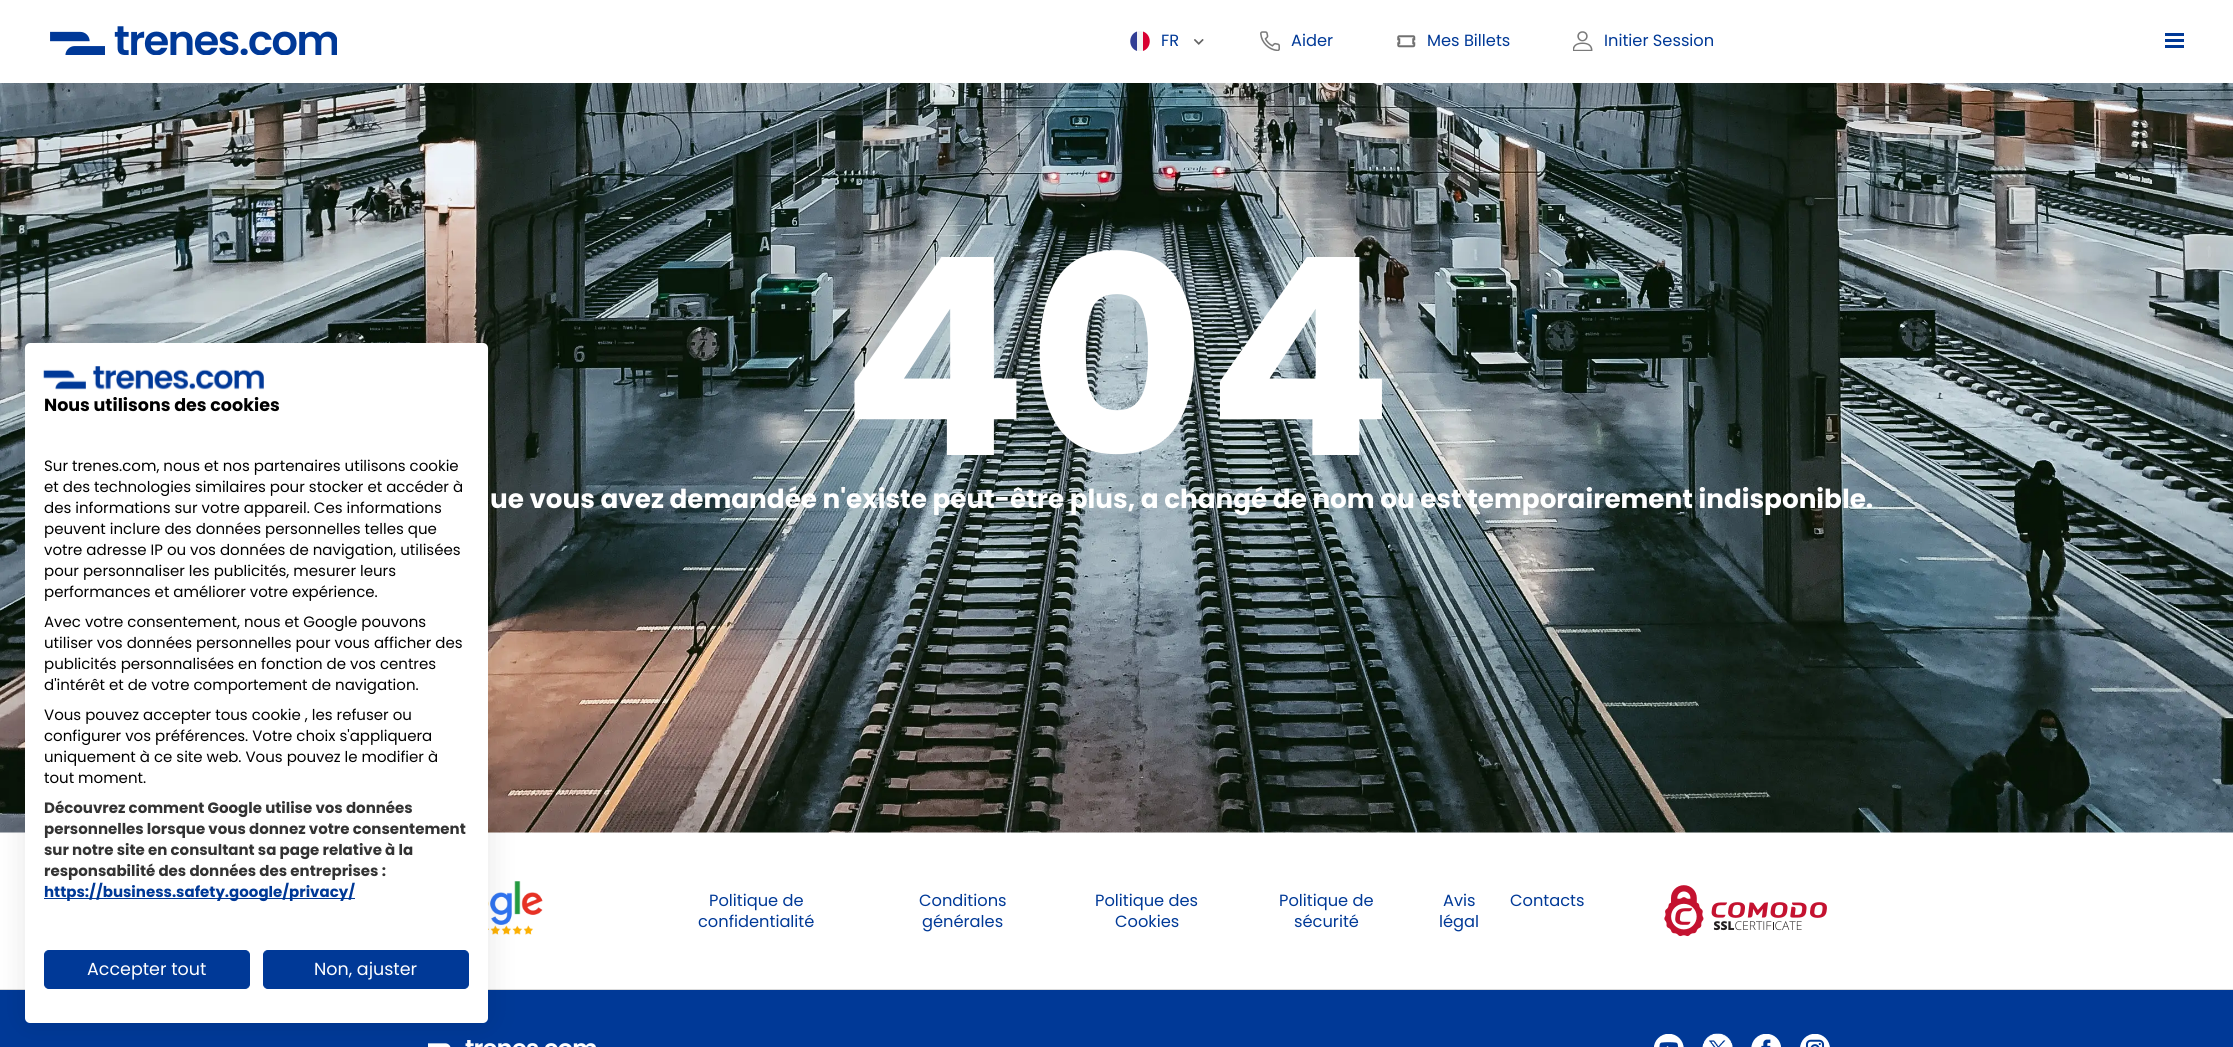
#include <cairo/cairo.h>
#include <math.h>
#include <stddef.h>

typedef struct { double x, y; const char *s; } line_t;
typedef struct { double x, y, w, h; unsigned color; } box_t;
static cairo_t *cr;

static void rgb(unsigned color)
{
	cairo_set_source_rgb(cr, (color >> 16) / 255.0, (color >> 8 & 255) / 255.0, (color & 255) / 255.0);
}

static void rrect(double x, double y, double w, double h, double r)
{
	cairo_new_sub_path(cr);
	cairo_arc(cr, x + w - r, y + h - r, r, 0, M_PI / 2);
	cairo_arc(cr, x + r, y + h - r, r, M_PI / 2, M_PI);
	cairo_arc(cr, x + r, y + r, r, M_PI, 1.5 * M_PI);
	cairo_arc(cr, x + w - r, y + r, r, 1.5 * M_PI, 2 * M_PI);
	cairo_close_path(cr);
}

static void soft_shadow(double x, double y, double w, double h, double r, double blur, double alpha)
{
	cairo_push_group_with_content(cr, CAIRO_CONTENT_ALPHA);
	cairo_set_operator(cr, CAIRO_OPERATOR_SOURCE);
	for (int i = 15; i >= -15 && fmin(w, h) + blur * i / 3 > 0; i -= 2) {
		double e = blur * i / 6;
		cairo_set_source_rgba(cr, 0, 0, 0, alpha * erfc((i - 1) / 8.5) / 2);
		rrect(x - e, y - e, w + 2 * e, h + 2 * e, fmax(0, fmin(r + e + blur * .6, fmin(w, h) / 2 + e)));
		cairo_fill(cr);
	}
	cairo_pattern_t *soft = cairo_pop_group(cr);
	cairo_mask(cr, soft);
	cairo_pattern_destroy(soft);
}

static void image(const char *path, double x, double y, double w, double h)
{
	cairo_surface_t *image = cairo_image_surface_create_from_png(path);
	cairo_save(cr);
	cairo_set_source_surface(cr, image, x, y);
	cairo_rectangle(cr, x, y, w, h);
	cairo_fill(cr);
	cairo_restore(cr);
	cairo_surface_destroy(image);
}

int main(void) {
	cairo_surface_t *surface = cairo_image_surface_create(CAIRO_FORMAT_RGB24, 2233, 1047);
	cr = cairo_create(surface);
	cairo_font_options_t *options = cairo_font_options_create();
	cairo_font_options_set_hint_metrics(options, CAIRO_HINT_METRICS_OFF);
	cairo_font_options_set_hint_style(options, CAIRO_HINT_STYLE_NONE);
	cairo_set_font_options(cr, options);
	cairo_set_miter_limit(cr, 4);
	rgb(0xffffff);
	cairo_paint(cr);
	image("img/1.png", 50, 26, 287, 29);
	image("img/2.png", 1194, 39, 10, 6);
	rgb(0x323e95);
	cairo_new_path(cr);
	cairo_move_to(cr, 1137, 51);
	cairo_curve_to(cr, 1128, 48, 1128, 34.5, 1137, 31.5);
	cairo_close_path(cr);
	cairo_fill(cr);
	cairo_save(cr);
	cairo_rectangle(cr, 1130, 31, 20, 20);
	cairo_clip(cr);
	rgb(0xf4f4f4);
	cairo_new_path(cr);
	cairo_move_to(cr, 1140, 31);
	cairo_line_to(cr, 1143, 31.5);
	cairo_line_to(cr, 1143, 51);
	cairo_curve_to(cr, 1141.5, 51.5, 1138.5, 51.5, 1137, 51);
	cairo_line_to(cr, 1137, 31.5);
	cairo_close_path(cr);
	cairo_fill(cr);
	cairo_restore(cr);
	rgb(0xd80031);
	cairo_new_path(cr);
	cairo_move_to(cr, 1143, 51);
	cairo_line_to(cr, 1143, 31.5);
	cairo_curve_to(cr, 1152, 34.5, 1152, 48, 1143, 51);
	cairo_close_path(cr);
	cairo_fill(cr);
	image("img/3.png", 1260, 31, 20, 20);
	image("img/4.png", 1397, 35, 19, 13);
	image("img/5.png", 1573, 31, 20, 20);
	{
		static const box_t items[] = {
			{2165, 33, 19, 3, 0x003997},
			{2165, 39, 19, 3, 0x003997},
			{2165, 45, 19, 3, 0x003997},
		};
		for (size_t i = 0; i < sizeof items / sizeof *items; i++) {
			rgb(items[i].color);
			cairo_rectangle(cr, items[i].x, items[i].y, items[i].w, items[i].h);
			cairo_fill(cr);
		}
	}
	image("img/7.png", 0, 83, 2233, 750);
	image("img/8.png", 488, 881, 55, 54);
	rgb(0xdbdbdb);
	cairo_rectangle(cr, 0, 989, 2233, 1);
	cairo_fill(cr);
	rgb(0x003997);
	cairo_rectangle(cr, 0, 990, 2233, 57);
	cairo_fill(cr);
	image("img/10.png", 428, 1040, 168, 7);
	rgb(0x000000);
	soft_shadow(25, 343, 463, 680, 5, 15, 0.1);
	rgb(0xffffff);
	rrect(25, 343, 463, 680, 5);
	cairo_fill(cr);
	image("img/6.png", 43, 366, 221, 24);
	rgb(0x003997);
	cairo_rectangle(cr, 44, 898, 311, 1);
	cairo_fill(cr);
	rrect(44.5, 950.5, 205, 38, 4.5);
	cairo_fill_preserve(cr);
	cairo_set_line_width(cr, 1);
	cairo_stroke(cr);
	rrect(263.5, 950.5, 205, 38, 4.5);
	cairo_fill_preserve(cr);
	cairo_stroke(cr);
	image("img/9.png", 1664, 885, 163, 52);
	image("img/11.png", 1654, 1034, 30, 13);
	image("img/12.png", 1702, 1033, 31, 14);
	image("img/13.png", 1751, 1034, 30, 13);
	image("img/14.png", 1800, 1034, 30, 13);
	cairo_select_font_face(cr, "Poppins", CAIRO_FONT_SLANT_NORMAL, CAIRO_FONT_WEIGHT_NORMAL);
	cairo_set_font_size(cr, 16.25);
	{
		static const line_t items[] = {
			{1161, 46, "FR"},
			{1291, 46, "Aider"},
			{1427, 46, "Mes Billets"},
			{1604, 46, "Initier Session"},
		};
		for (size_t i = 0; i < sizeof items / sizeof *items; i++) {
			cairo_move_to(cr, items[i].x, items[i].y);
			cairo_show_text(cr, items[i].s);
		}
	}
	cairo_select_font_face(cr, "Poppins", CAIRO_FONT_SLANT_NORMAL, CAIRO_FONT_WEIGHT_BOLD);
	cairo_set_font_size(cr, 17.5);
	rgb(0x000000);
	cairo_move_to(cr, 44, 411);
	cairo_show_text(cr, "Nous utilisons des cookies");
	cairo_select_font_face(cr, "Poppins", CAIRO_FONT_SLANT_NORMAL, CAIRO_FONT_WEIGHT_NORMAL);
	cairo_set_font_size(cr, 15);
	{
		static const line_t items[] = {
			{44, 471, "Sur trenes.com, nous et nos partenaires utilisons cookie"},
			{44, 492, "et des technologies similaires pour stocker et accéder à"},
			{44, 513, "des informations sur votre appareil. Ces informations"},
			{44, 534, "peuvent inclure des données personnelles telles que"},
			{44, 555, "votre adresse IP ou vos données de navigation, utilisées"},
			{44, 576, "pour personnaliser les publicités, mesurer leurs"},
			{44, 597, "performances et améliorer votre expérience."},
			{44, 627, "Avec votre consentement, nous et Google pouvons"},
			{44, 648, "utiliser vos données personnelles pour vous afficher des"},
			{44, 669, "publicités personnalisées en fonction de vos centres"},
			{44, 690, "d'intérêt et de votre comportement de navigation."},
			{44, 720, "Vous pouvez accepter tous cookie , les refuser ou"},
			{44, 741, "configurer vos préférences. Votre choix s'appliquera"},
			{44, 762, "uniquement à ce site web. Vous pouvez le modifier à"},
			{44, 783, "tout moment."},
		};
		for (size_t i = 0; i < sizeof items / sizeof *items; i++) {
			cairo_move_to(cr, items[i].x, items[i].y);
			cairo_show_text(cr, items[i].s);
		}
	}
	cairo_select_font_face(cr, "Poppins", CAIRO_FONT_SLANT_NORMAL, CAIRO_FONT_WEIGHT_BOLD);
	rgb(0x333333);
	{
		static const line_t items[] = {
			{44, 813, "Découvrez comment Google utilise vos données"},
			{44, 834, "personnelles lorsque vous donnez votre consentement"},
			{44, 855, "sur notre site en consultant sa page relative à la"},
			{44, 876, "responsabilité des données des entreprises :"},
		};
		for (size_t i = 0; i < sizeof items / sizeof *items; i++) {
			cairo_move_to(cr, items[i].x, items[i].y);
			cairo_show_text(cr, items[i].s);
		}
	}
	rgb(0x003997);
	cairo_move_to(cr, 44, 897);
	cairo_show_text(cr, "https://business.safety.google/privacy/");
	cairo_select_font_face(cr, "Poppins", CAIRO_FONT_SLANT_NORMAL, CAIRO_FONT_WEIGHT_NORMAL);
	cairo_set_font_size(cr, 17.5);
	rgb(0xffffff);
	cairo_move_to(cr, 87, 975);
	cairo_show_text(cr, "Accepter tout");
	cairo_move_to(cr, 314, 975);
	cairo_show_text(cr, "Non, ajuster");
	cairo_select_font_face(cr, "Poppins", CAIRO_FONT_SLANT_NORMAL, CAIRO_FONT_WEIGHT_BOLD);
	cairo_set_font_size(cr, 275);
	cairo_move_to(cr, 841, 455);
	cairo_show_text(cr, "404");
	cairo_set_font_size(cr, 26.25);
	cairo_move_to(cr, 490, 508);
	cairo_show_text(cr, "ue vous avez demandée n'existe peut-être plus, a changé de nom ou est temporairement indisponible.");
	cairo_select_font_face(cr, "Poppins", CAIRO_FONT_SLANT_NORMAL, CAIRO_FONT_WEIGHT_NORMAL);
	cairo_set_font_size(cr, 16.25);
	rgb(0x003997);
	{
		static const line_t items[] = {
			{709, 906, "Politique de"},
			{698, 927, "confidentialité"},
			{919, 906, "Conditions"},
			{922, 927, "générales"},
			{1095, 906, "Politique des"},
			{1115, 927, "Cookies"},
			{1279, 906, "Politique de"},
			{1294, 927, "sécurité"},
			{1443, 906, "Avis"},
			{1439, 927, "légal"},
			{1510, 906, "Contacts"},
		};
		for (size_t i = 0; i < sizeof items / sizeof *items; i++) {
			cairo_move_to(cr, items[i].x, items[i].y);
			cairo_show_text(cr, items[i].s);
		}
	}
	cairo_surface_write_to_png(surface, "page.png");
	cairo_font_options_destroy(options);
	cairo_destroy(cr);
	cairo_surface_destroy(surface);
	return 0;
}
